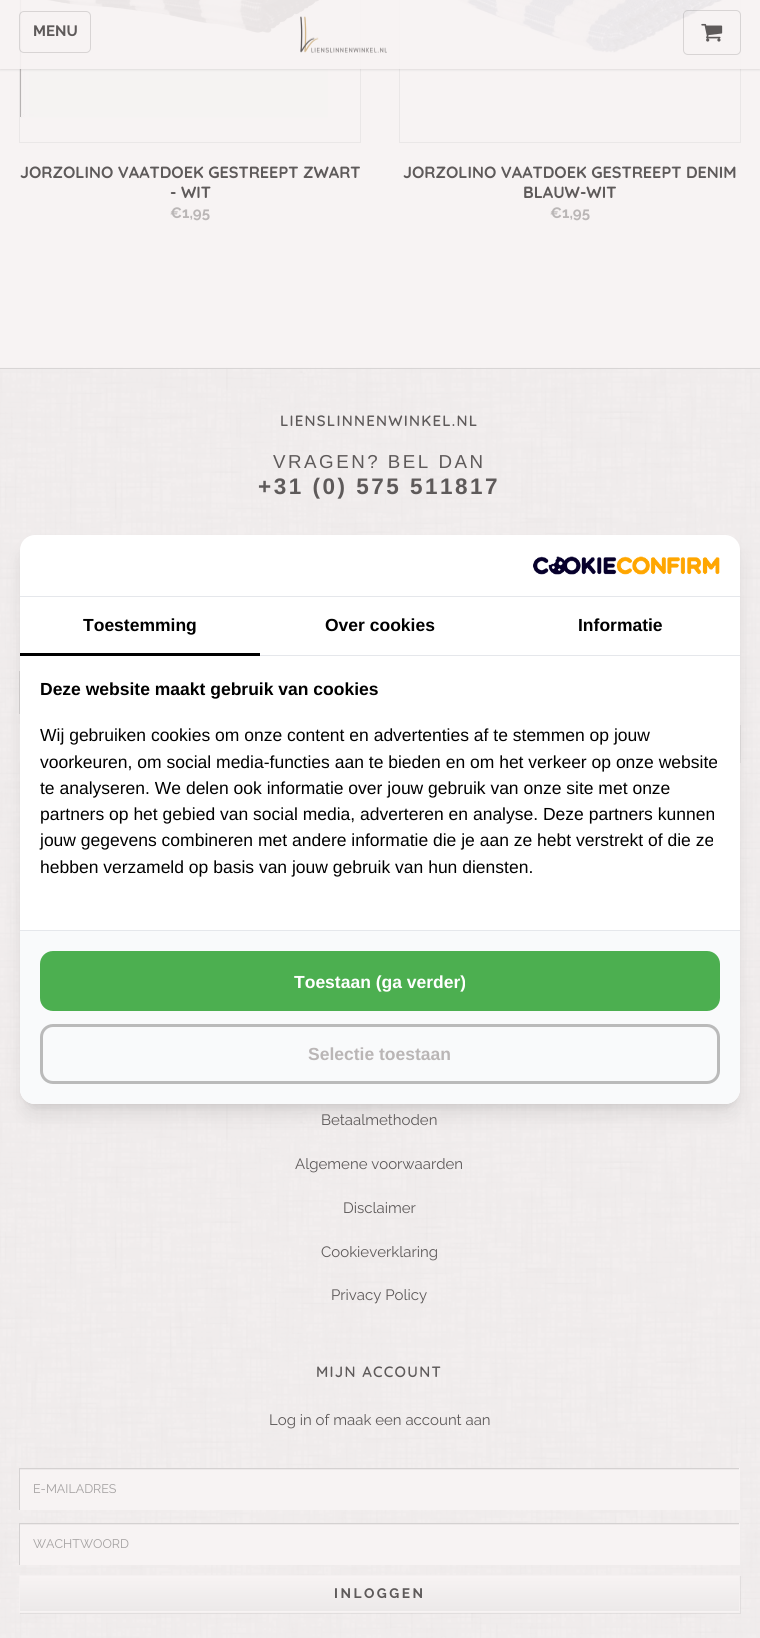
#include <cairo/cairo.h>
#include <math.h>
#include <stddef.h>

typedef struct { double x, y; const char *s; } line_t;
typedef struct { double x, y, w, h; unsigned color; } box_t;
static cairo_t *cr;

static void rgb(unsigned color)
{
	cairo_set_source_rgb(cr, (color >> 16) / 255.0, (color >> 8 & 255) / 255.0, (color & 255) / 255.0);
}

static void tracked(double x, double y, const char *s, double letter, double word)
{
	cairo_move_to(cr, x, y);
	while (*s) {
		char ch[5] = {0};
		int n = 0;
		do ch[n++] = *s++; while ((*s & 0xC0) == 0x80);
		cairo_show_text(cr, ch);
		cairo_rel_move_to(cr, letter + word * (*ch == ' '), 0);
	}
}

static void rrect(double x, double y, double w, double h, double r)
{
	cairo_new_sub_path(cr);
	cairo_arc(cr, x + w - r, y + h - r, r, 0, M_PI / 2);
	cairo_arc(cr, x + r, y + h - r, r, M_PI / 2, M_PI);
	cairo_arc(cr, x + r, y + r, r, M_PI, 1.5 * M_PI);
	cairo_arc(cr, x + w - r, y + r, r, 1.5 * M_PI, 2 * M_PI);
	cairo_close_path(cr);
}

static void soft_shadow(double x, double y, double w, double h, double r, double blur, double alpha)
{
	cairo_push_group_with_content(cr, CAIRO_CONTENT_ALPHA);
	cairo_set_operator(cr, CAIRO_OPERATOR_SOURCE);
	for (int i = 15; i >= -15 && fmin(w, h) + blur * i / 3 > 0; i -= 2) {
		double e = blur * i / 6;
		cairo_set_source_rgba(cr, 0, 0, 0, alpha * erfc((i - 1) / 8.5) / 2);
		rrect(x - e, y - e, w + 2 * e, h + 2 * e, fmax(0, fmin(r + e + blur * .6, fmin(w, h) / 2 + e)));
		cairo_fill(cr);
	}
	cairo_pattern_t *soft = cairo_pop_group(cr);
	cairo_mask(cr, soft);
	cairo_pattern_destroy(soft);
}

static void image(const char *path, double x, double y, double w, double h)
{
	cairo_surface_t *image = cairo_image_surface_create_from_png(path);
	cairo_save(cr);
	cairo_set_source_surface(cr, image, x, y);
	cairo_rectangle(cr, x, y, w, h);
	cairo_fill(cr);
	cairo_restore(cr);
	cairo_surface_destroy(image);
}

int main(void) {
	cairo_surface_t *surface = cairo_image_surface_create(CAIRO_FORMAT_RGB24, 760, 1638);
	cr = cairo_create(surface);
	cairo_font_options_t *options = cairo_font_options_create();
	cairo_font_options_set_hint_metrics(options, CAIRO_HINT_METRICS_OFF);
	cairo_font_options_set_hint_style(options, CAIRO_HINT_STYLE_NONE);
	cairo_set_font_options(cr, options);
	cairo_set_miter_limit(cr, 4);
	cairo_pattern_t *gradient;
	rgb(0xf7f3f3);
	cairo_paint(cr);
	cairo_rectangle(cr, 19.5, -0.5, 341, 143);
	rgb(0xeae7e7);
	cairo_set_line_width(cr, 1);
	cairo_stroke(cr);
	image("img/3.png", 20, 0, 308, 118);
	cairo_rectangle(cr, 399.5, -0.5, 341, 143);
	cairo_stroke(cr);
	image("img/4.png", 436, 0, 292, 56);
	cairo_save(cr);
	cairo_set_fill_rule(cr, CAIRO_FILL_RULE_EVEN_ODD);
	cairo_new_path(cr);
	cairo_move_to(cr, 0, 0);
	cairo_line_to(cr, 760, 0);
	cairo_line_to(cr, 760, 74);
	cairo_line_to(cr, 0, 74);
	cairo_close_path(cr);
	cairo_move_to(cr, 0, 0);
	cairo_line_to(cr, 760, 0);
	cairo_line_to(cr, 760, 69);
	cairo_line_to(cr, 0, 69);
	cairo_close_path(cr);
	cairo_clip(cr);
	rgb(0x5e5a5a);
	soft_shadow(0, 1, 760, 69, 0, 1, 0.15);
	cairo_restore(cr);
	cairo_set_source_rgba(cr, 0.969, 0.953, 0.953, 0.9);
	cairo_rectangle(cr, 0, 0, 760, 69);
	cairo_fill(cr);
	rrect(19.5, 11.5, 71, 41, 4.5);
	cairo_set_source_rgba(cr, 0.369, 0.353, 0.353, 0.2);
	cairo_stroke(cr);
	image("img/1.png", 300, 16, 87, 37);
	rrect(683.5, 10.5, 57, 44, 4.5);
	cairo_stroke(cr);
	image("img/2.png", 701, 23, 22, 19);
	image("img/5.png", 0, 367, 760, 1271);
	rgb(0xd8d5d5);
	cairo_rectangle(cr, 0, 368, 760, 1);
	cairo_fill(cr);
	rgb(0xd4d1d1);
	cairo_rectangle(cr, 19, 671, 1, 43);
	cairo_fill(cr);
	cairo_set_source_rgba(cr, 0.369, 0.353, 0.353, 0.1);
	cairo_new_path(cr);
	cairo_move_to(cr, 20, 761);
	cairo_line_to(cr, 20, 763);
	cairo_line_to(cr, 741, 763);
	cairo_line_to(cr, 741, 725);
	cairo_line_to(cr, 740, 725);
	cairo_line_to(cr, 740, 761);
	cairo_close_path(cr);
	cairo_fill(cr);
	cairo_rectangle(cr, 19.5, 724.5, 720, 36);
	rgb(0xf4f0f0);
	cairo_stroke(cr);
	{
		static const box_t items[] = {
			{20, 1470, 719, 40, 0xf7f3f3},
			{20, 1469, 719, 1, 0xede9e9},
			{19, 1468, 721, 1, 0xd4d1d1},
			{739, 1468, 1, 42, 0xf7f3f3},
			{19, 1468, 1, 42, 0xd4d1d1},
			{20, 1525, 719, 40, 0xf7f3f3},
			{20, 1524, 719, 1, 0xede9e9},
			{19, 1523, 721, 1, 0xd4d1d1},
			{739, 1523, 1, 42, 0xf7f3f3},
			{19, 1523, 1, 42, 0xd4d1d1},
		};
		for (size_t i = 0; i < sizeof items / sizeof *items; i++) {
			rgb(items[i].color);
			cairo_rectangle(cr, items[i].x, items[i].y, items[i].w, items[i].h);
			cairo_fill(cr);
		}
	}
	cairo_set_source_rgba(cr, 0.369, 0.353, 0.353, 0.1);
	cairo_new_path(cr);
	cairo_move_to(cr, 20, 1612);
	cairo_line_to(cr, 20, 1614);
	cairo_line_to(cr, 741, 1614);
	cairo_line_to(cr, 741, 1576);
	cairo_line_to(cr, 740, 1576);
	cairo_line_to(cr, 740, 1612);
	cairo_close_path(cr);
	cairo_fill(cr);
	gradient = cairo_pattern_create_linear(379, 1576, 379, 1611);
	cairo_pattern_add_color_stop_rgba(gradient, 0, 0.969, 0.953, 0.953, 1);
	cairo_pattern_add_color_stop_rgba(gradient, 1, 0.925, 0.914, 0.914, 1);
	cairo_set_source(cr, gradient);
	cairo_pattern_destroy(gradient);
	cairo_rectangle(cr, 20, 1576, 719, 35);
	cairo_fill(cr);
	gradient = cairo_pattern_create_linear(379, 1611, 379, 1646);
	cairo_pattern_add_color_stop_rgba(gradient, 0, 0.969, 0.953, 0.953, 1);
	cairo_pattern_add_color_stop_rgba(gradient, 1, 0.925, 0.914, 0.914, 1);
	cairo_set_source(cr, gradient);
	cairo_pattern_destroy(gradient);
	cairo_rectangle(cr, 19, 1611, 721, 1);
	cairo_fill(cr);
	cairo_rectangle(cr, 19.5, 1575.5, 720, 37);
	rgb(0xf4f0f0);
	cairo_stroke(cr);
	rgb(0x000000);
	soft_shadow(25, 545, 710, 559, 10, 4, 0.1);
	soft_shadow(24, 551, 712, 562, 11, 9.5, 0.1);
	rgb(0xffffff);
	rrect(20, 535, 720, 569, 15);
	cairo_fill(cr);
	rgb(0xe5e7eb);
	cairo_rectangle(cr, 20, 596, 720, 1);
	cairo_fill(cr);
	image("img/6.png", 533, 556, 187, 19);
	cairo_rectangle(cr, 260, 655, 480, 1);
	cairo_fill(cr);
	rgb(0x000000);
	cairo_rectangle(cr, 20, 653, 240, 3);
	cairo_fill(cr);
	cairo_save(cr);
	rrect(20, 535, 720, 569, 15);
	cairo_clip(cr);
	rgb(0xffffff);
	soft_shadow(10, 895, 740, 194, 0, 12.5, 1);
	cairo_restore(cr);
	rgb(0xf9fafb);
	cairo_new_path(cr);
	cairo_move_to(cr, 20, 930);
	cairo_line_to(cr, 740, 930);
	cairo_line_to(cr, 740, 1089);
	cairo_curve_to(cr, 740, 1097.5, 733.5, 1104, 725, 1104);
	cairo_line_to(cr, 35, 1104);
	cairo_curve_to(cr, 26.5, 1104, 20, 1097.5, 20, 1089);
	cairo_close_path(cr);
	cairo_fill(cr);
	rgb(0xe5e7eb);
	cairo_rectangle(cr, 20, 930, 720, 1);
	cairo_fill(cr);
	rgb(0x4caf50);
	rrect(41.5, 952.5, 677, 57, 11.5);
	cairo_fill_preserve(cr);
	cairo_set_line_width(cr, 3);
	cairo_stroke(cr);
	rrect(41.5, 1025.5, 677, 57, 11.5);
	rgb(0xbababa);
	cairo_stroke(cr);
	cairo_select_font_face(cr, "Raleway", CAIRO_FONT_SLANT_NORMAL, CAIRO_FONT_WEIGHT_BOLD);
	cairo_set_font_size(cr, 15);
	rgb(0x5e5a5a);
	cairo_move_to(cr, 33, 36);
	cairo_show_text(cr, "MENU");
	cairo_select_font_face(cr, "Quicksand", CAIRO_FONT_SLANT_NORMAL, CAIRO_FONT_WEIGHT_BOLD);
	cairo_set_font_size(cr, 16.25);
	cairo_move_to(cr, 20, 178);
	cairo_show_text(cr, "JORZOLINO VAATDOEK GESTREEPT ZWART");
	cairo_move_to(cr, 170, 198);
	cairo_show_text(cr, "- WIT");
	cairo_select_font_face(cr, "Raleway", CAIRO_FONT_SLANT_NORMAL, CAIRO_FONT_WEIGHT_BOLD);
	cairo_set_font_size(cr, 15);
	rgb(0xbab6b6);
	cairo_move_to(cr, 170, 218);
	cairo_show_text(cr, "€1,95");
	cairo_select_font_face(cr, "Quicksand", CAIRO_FONT_SLANT_NORMAL, CAIRO_FONT_WEIGHT_BOLD);
	cairo_set_font_size(cr, 16.25);
	rgb(0x5e5a5a);
	cairo_move_to(cr, 403, 178);
	cairo_show_text(cr, "JORZOLINO VAATDOEK GESTREEPT DENIM");
	cairo_move_to(cr, 523, 198);
	cairo_show_text(cr, "BLAUW-WIT");
	cairo_select_font_face(cr, "Raleway", CAIRO_FONT_SLANT_NORMAL, CAIRO_FONT_WEIGHT_BOLD);
	cairo_set_font_size(cr, 15);
	rgb(0xbab6b6);
	cairo_move_to(cr, 550, 218);
	cairo_show_text(cr, "€1,95");
	cairo_select_font_face(cr, "Quicksand SemiBold", CAIRO_FONT_SLANT_NORMAL, CAIRO_FONT_WEIGHT_NORMAL);
	rgb(0x5e5a5a);
	tracked(280, 426, "LIENSLINNENWINKEL.NL", 1.25, 0);
	cairo_select_font_face(cr, "Liberation Sans", CAIRO_FONT_SLANT_NORMAL, CAIRO_FONT_WEIGHT_NORMAL);
	cairo_set_font_size(cr, 18.75);
	tracked(273, 468, "VRAGEN? BEL DAN", 2.5, 0);
	cairo_select_font_face(cr, "Liberation Sans", CAIRO_FONT_SLANT_NORMAL, CAIRO_FONT_WEIGHT_BOLD);
	cairo_set_font_size(cr, 22.5);
	tracked(258, 494, "+31 (0) 575 511817", 2.5, 0);
	cairo_select_font_face(cr, "Raleway", CAIRO_FONT_SLANT_NORMAL, CAIRO_FONT_WEIGHT_NORMAL);
	cairo_set_font_size(cr, 15);
	{
		static const line_t items[] = {
			{321, 1125, "Betaalmethoden"},
			{295, 1169, "Algemene voorwaarden"},
			{343, 1213, "Disclaimer"},
			{321, 1257, "Cookieverklaring"},
			{331, 1300, "Privacy Policy"},
		};
		for (size_t i = 0; i < sizeof items / sizeof *items; i++) {
			cairo_move_to(cr, items[i].x, items[i].y);
			cairo_show_text(cr, items[i].s);
		}
	}
	cairo_select_font_face(cr, "Quicksand SemiBold", CAIRO_FONT_SLANT_NORMAL, CAIRO_FONT_WEIGHT_NORMAL);
	tracked(316, 1377, "MIJN ACCOUNT", 1.25, 0);
	cairo_select_font_face(cr, "Raleway", CAIRO_FONT_SLANT_NORMAL, CAIRO_FONT_WEIGHT_NORMAL);
	cairo_move_to(cr, 269, 1425);
	cairo_show_text(cr, "Log in of maak een account aan");
	cairo_set_font_size(cr, 12.5);
	rgb(0xa4a1a1);
	cairo_move_to(cr, 33, 1493);
	cairo_show_text(cr, "E-MAILADRES");
	cairo_move_to(cr, 33, 1548);
	cairo_show_text(cr, "WACHTWOORD");
	cairo_select_font_face(cr, "Raleway", CAIRO_FONT_SLANT_NORMAL, CAIRO_FONT_WEIGHT_BOLD);
	cairo_set_font_size(cr, 13.75);
	rgb(0x5e5a5a);
	tracked(334, 1598, "INLOGGEN", 2.5, 0);
	cairo_select_font_face(cr, "Liberation Sans", CAIRO_FONT_SLANT_NORMAL, CAIRO_FONT_WEIGHT_BOLD);
	cairo_set_font_size(cr, 17.5);
	rgb(0x000000);
	{
		static const line_t items[] = {
			{83, 631, "Toestemming"},
			{325, 631, "Over cookies"},
			{578, 631, "Informatie"},
			{40, 695, "Deze website maakt gebruik van cookies"},
		};
		for (size_t i = 0; i < sizeof items / sizeof *items; i++) {
			cairo_move_to(cr, items[i].x, items[i].y);
			cairo_show_text(cr, items[i].s);
		}
	}
	cairo_select_font_face(cr, "Liberation Sans", CAIRO_FONT_SLANT_NORMAL, CAIRO_FONT_WEIGHT_NORMAL);
	{
		static const line_t items[] = {
			{40, 741, "Wij gebruiken cookies om onze content en advertenties af te stemmen op jouw"},
			{40, 768, "voorkeuren, om social media-functies aan te bieden en om het verkeer op onze website"},
			{40, 794, "te analyseren. We delen ook informatie over jouw gebruik van onze site met onze"},
			{40, 820, "partners op het gebied van social media, adverteren en analyse. Deze partners kunnen"},
			{40, 846, "jouw gegevens combineren met andere informatie die je aan ze hebt verstrekt of die ze"},
			{40, 873, "hebben verzameld op basis van jouw gebruik van hun diensten."},
		};
		for (size_t i = 0; i < sizeof items / sizeof *items; i++) {
			cairo_move_to(cr, items[i].x, items[i].y);
			cairo_show_text(cr, items[i].s);
		}
	}
	cairo_select_font_face(cr, "Liberation Sans", CAIRO_FONT_SLANT_NORMAL, CAIRO_FONT_WEIGHT_BOLD);
	rgb(0xffffff);
	cairo_move_to(cr, 294, 988);
	cairo_show_text(cr, "Toestaan (ga verder)");
	rgb(0xbab6b6);
	cairo_move_to(cr, 308, 1060);
	cairo_show_text(cr, "Selectie toestaan");
	cairo_surface_write_to_png(surface, "page.png");
	cairo_font_options_destroy(options);
	cairo_destroy(cr);
	cairo_surface_destroy(surface);
	return 0;
}
